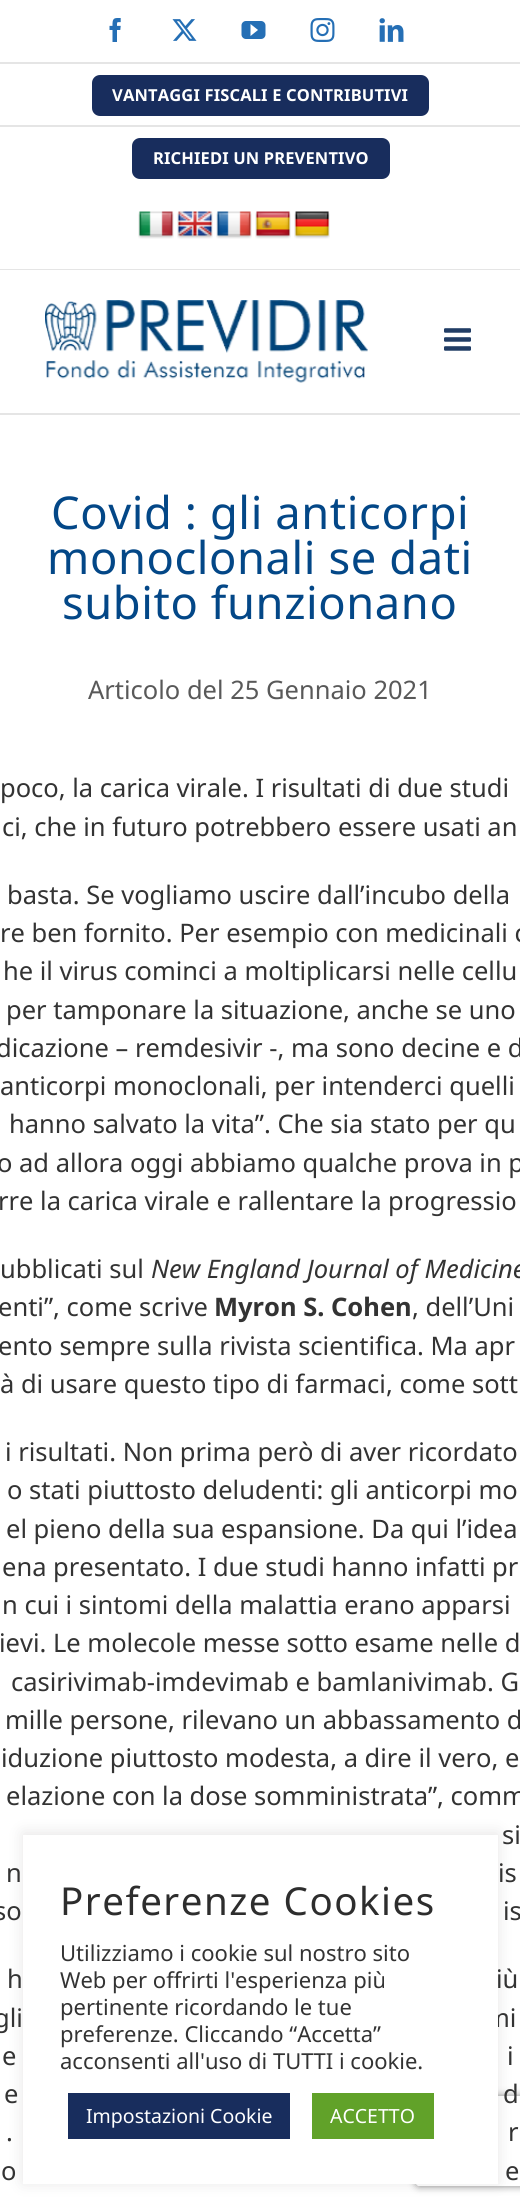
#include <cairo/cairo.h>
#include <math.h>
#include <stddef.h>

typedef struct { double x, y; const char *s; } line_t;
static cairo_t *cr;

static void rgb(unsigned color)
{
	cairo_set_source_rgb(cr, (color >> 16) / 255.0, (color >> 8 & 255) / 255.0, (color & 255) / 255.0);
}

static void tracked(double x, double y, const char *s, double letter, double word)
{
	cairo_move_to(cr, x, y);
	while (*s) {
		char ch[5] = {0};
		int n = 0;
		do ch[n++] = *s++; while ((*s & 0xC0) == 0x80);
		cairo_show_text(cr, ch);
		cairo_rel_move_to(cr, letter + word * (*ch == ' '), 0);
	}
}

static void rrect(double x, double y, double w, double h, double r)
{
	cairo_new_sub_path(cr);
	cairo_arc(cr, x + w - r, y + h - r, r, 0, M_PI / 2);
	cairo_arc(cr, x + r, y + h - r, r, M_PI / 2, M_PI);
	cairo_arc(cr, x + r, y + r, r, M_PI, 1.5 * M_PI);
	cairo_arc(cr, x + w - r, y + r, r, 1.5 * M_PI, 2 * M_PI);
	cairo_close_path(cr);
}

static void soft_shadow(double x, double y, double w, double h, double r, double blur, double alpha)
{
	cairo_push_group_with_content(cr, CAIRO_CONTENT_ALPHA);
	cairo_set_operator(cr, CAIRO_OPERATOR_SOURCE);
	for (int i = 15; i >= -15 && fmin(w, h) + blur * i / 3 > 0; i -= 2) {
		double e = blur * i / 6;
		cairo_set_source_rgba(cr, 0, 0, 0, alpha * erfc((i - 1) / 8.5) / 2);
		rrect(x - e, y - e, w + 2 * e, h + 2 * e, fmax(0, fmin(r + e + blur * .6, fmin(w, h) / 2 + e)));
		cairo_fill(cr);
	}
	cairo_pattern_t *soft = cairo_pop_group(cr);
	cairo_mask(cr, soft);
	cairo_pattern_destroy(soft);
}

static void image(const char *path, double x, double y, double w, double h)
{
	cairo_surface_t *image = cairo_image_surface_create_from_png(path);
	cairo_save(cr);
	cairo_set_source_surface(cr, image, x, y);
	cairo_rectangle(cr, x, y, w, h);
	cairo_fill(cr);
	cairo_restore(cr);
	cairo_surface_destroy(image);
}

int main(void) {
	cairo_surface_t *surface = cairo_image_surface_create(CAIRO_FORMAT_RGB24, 520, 2206);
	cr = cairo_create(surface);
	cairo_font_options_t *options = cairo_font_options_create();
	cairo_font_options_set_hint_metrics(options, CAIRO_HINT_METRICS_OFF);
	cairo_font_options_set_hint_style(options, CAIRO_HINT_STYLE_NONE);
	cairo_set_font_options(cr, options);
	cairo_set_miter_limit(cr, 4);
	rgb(0xffffff);
	cairo_paint(cr);
	rgb(0xe5e5e5);
	cairo_rectangle(cr, 0, 269, 520, 1);
	cairo_fill(cr);
	cairo_rectangle(cr, 0, 62, 520, 2);
	cairo_fill(cr);
	image("img/1.png", 109, 18, 12, 24);
	image("img/2.png", 172, 19, 25, 22);
	image("img/3.png", 241, 21, 25, 18);
	image("img/4.png", 310, 18, 25, 24);
	image("img/5.png", 379, 18, 25, 24);
	rgb(0x182d5d);
	rrect(92, 75, 337, 41, 8);
	cairo_fill(cr);
	rgb(0xe5e5e5);
	cairo_rectangle(cr, 0, 125, 520, 2);
	cairo_fill(cr);
	rgb(0x182d5d);
	rrect(132, 138, 258, 41, 8);
	cairo_fill(cr);
	image("img/6.png", 138, 211, 36, 28);
	image("img/7.png", 177, 211, 36, 28);
	image("img/8.png", 216, 211, 36, 28);
	image("img/9.png", 255, 211, 36, 28);
	image("img/10.png", 294, 211, 36, 28);
	rgb(0xe5e5e5);
	cairo_rectangle(cr, 0, 413, 520, 2);
	cairo_fill(cr);
	image("img/11.png", 45, 300, 323, 83);
	image("img/12.png", 444, 328, 27, 23);
	rgb(0xacabab);
	soft_shadow(23, 1833, 475, 350, 0, 7.5, 0.3);
	cairo_save(cr);
	cairo_set_fill_rule(cr, CAIRO_FILL_RULE_EVEN_ODD);
	cairo_new_path(cr);
	cairo_move_to(cr, 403, 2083);
	cairo_line_to(cr, 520, 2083);
	cairo_line_to(cr, 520, 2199);
	cairo_line_to(cr, 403, 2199);
	cairo_close_path(cr);
	cairo_move_to(cr, 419, 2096);
	cairo_line_to(cr, 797, 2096);
	cairo_curve_to(cr, 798.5, 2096, 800, 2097.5, 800, 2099);
	cairo_line_to(cr, 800, 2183);
	cairo_curve_to(cr, 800, 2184.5, 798.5, 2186, 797, 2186);
	cairo_line_to(cr, 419, 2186);
	cairo_curve_to(cr, 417.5, 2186, 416, 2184.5, 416, 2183);
	cairo_line_to(cr, 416, 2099);
	cairo_curve_to(cr, 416, 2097.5, 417.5, 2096, 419, 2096);
	cairo_close_path(cr);
	cairo_clip(cr);
	rgb(0x808080);
	soft_shadow(416, 2096, 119, 90, 3, 4, 1);
	cairo_restore(cr);
	cairo_select_font_face(cr, "Noto Sans", CAIRO_FONT_SLANT_NORMAL, CAIRO_FONT_WEIGHT_BOLD);
	cairo_set_font_size(cr, 16.5);
	rgb(0xffffff);
	tracked(112, 101, "VANTAGGI FISCALI E CONTRIBUTIVI", 0.15, 0);
	tracked(153, 164, "RICHIEDI UN PREVENTIVO", 0.15, 0);
	cairo_select_font_face(cr, "Noto Sans", CAIRO_FONT_SLANT_NORMAL, CAIRO_FONT_WEIGHT_NORMAL);
	cairo_set_font_size(cr, 45.25);
	rgb(0x034787);
	{
		static const line_t items[] = {
			{51, 529, "Covid : gli anticorpi"},
			{47, 574, "monoclonali se dati"},
			{62, 619, "subito funzionano"},
		};
		for (size_t i = 0; i < sizeof items / sizeof *items; i++) {
			tracked(items[i].x, items[i].y, items[i].s, 0.6, 0);
		}
	}
	cairo_set_font_size(cr, 25.5);
	rgb(0x595959);
	cairo_move_to(cr, 88, 699);
	cairo_show_text(cr, "Articolo del 25 Gennaio 2021");
	rgb(0x333333);
	{
		static const line_t items[] = {
			{0, 797, "poco, la carica virale. I risultati di due studi"},
			{2, 836, "ci, che in futuro potrebbero essere usati an"},
			{7, 904, "basta. Se vogliamo uscire dall’incubo della"},
			{0, 942, "re ben fornito. Per esempio con medicinali c"},
			{3, 980, "he il virus cominci a moltiplicarsi nelle cellu"},
			{6, 1019, "per tamponare la situazione, anche se uno"},
			{-4, 1057, "dicazione – remdesivir -, ma sono decine e d"},
			{0, 1095, "anticorpi monoclonali, per intenderci quelli"},
			{9, 1133, "hanno salvato la vita”. Che sia stato per qu"},
			{-3, 1172, "o ad allora oggi abbiamo qualche prova in p"},
			{-2, 1210, "rre la carica virale e rallentare la progressio"},
			{0, 1278, "ubblicati sul"},
		};
		for (size_t i = 0; i < sizeof items / sizeof *items; i++) {
			cairo_move_to(cr, items[i].x, items[i].y);
			cairo_show_text(cr, items[i].s);
		}
	}
	cairo_select_font_face(cr, "Noto Sans", CAIRO_FONT_SLANT_ITALIC, CAIRO_FONT_WEIGHT_NORMAL);
	cairo_move_to(cr, 151, 1278);
	cairo_show_text(cr, "New England Journal of Medicine");
	cairo_select_font_face(cr, "Noto Sans", CAIRO_FONT_SLANT_NORMAL, CAIRO_FONT_WEIGHT_NORMAL);
	cairo_move_to(cr, -2, 1316);
	cairo_show_text(cr, "enti”, come scrive");
	cairo_select_font_face(cr, "Noto Sans", CAIRO_FONT_SLANT_NORMAL, CAIRO_FONT_WEIGHT_BOLD);
	cairo_move_to(cr, 214, 1316);
	cairo_show_text(cr, "Myron S. Cohen");
	cairo_select_font_face(cr, "Noto Sans", CAIRO_FONT_SLANT_NORMAL, CAIRO_FONT_WEIGHT_NORMAL);
	{
		static const line_t items[] = {
			{412, 1316, ", dell’Uni"},
			{-2, 1355, "ento sempre sulla rivista scientifica. Ma apr"},
			{0, 1393, "à di usare questo tipo di farmaci, come sott"},
			{5, 1461, "i risultati. Non prima però di aver ricordato"},
			{7, 1499, "o stati piuttosto deludenti: gli anticorpi mo"},
			{6, 1538, "el pieno della sua espansione. Da qui l’idea"},
			{2, 1576, "ena presentato. I due studi hanno infatti pr"},
			{2, 1614, "n cui i sintomi della malattia erano apparsi"},
			{-1, 1652, "ievi. Le molecole messe sotto esame nelle d"},
			{11, 1691, "casirivimab-imdevimab e bamlanivimab. G"},
			{5, 1729, "mille persone, rilevano un abbassamento d"},
			{1, 1767, "iduzione piuttosto modesta, a dire il vero, e"},
			{6, 1805, "elazione con la dose somministrata”, comm"},
			{502, 1844, "si"},
			{6, 1882, "n"},
			{498, 1882, "is"},
			{-6, 1920, "so"},
			{503, 1920, "is"},
			{7, 1988, "h"},
			{496, 1988, "iù"},
			{-6, 2027, "gli"},
			{486, 2027, "mi"},
			{2, 2065, "e"},
			{507, 2065, "i"},
			{4, 2103, "e"},
			{503, 2103, "d"},
			{6, 2141, "."},
			{508, 2141, "r"},
			{1, 2180, "o"},
			{505, 2180, "e"},
		};
		for (size_t i = 0; i < sizeof items / sizeof *items; i++) {
			cairo_move_to(cr, items[i].x, items[i].y);
			cairo_show_text(cr, items[i].s);
		}
	}
	rgb(0xffffff);
	cairo_rectangle(cr, 23, 1835, 475, 349);
	cairo_fill(cr);
	cairo_set_font_size(cr, 38.5);
	rgb(0x2d2d2d);
	tracked(60, 1915, "Preferenze Cookies", 1.5, 0);
	cairo_set_font_size(cr, 22);
	rgb(0x333333);
	{
		static const line_t items[] = {
			{60, 1961, "Utilizziamo i cookie sul nostro sito"},
			{60, 1988, "Web per offrirti l'esperienza più"},
			{60, 2015, "pertinente ricordando le tue"},
			{60, 2042, "preferenze. Cliccando “Accetta”"},
			{60, 2069, "acconsenti all'uso di TUTTI i cookie."},
		};
		for (size_t i = 0; i < sizeof items / sizeof *items; i++) {
			cairo_move_to(cr, items[i].x, items[i].y);
			cairo_show_text(cr, items[i].s);
		}
	}
	rgb(0x182d5d);
	cairo_rectangle(cr, 68, 2093, 222, 46);
	cairo_fill(cr);
	cairo_set_font_size(cr, 19.5);
	rgb(0xffffff);
	cairo_move_to(cr, 86, 2123);
	cairo_show_text(cr, "Impostazioni Cookie");
	rgb(0x61a229);
	cairo_rectangle(cr, 312, 2093, 122, 46);
	cairo_fill(cr);
	rgb(0xffffff);
	cairo_move_to(cr, 330, 2123);
	cairo_show_text(cr, "ACCETTO");
	cairo_surface_write_to_png(surface, "page.png");
	cairo_font_options_destroy(options);
	cairo_destroy(cr);
	cairo_surface_destroy(surface);
	return 0;
}
